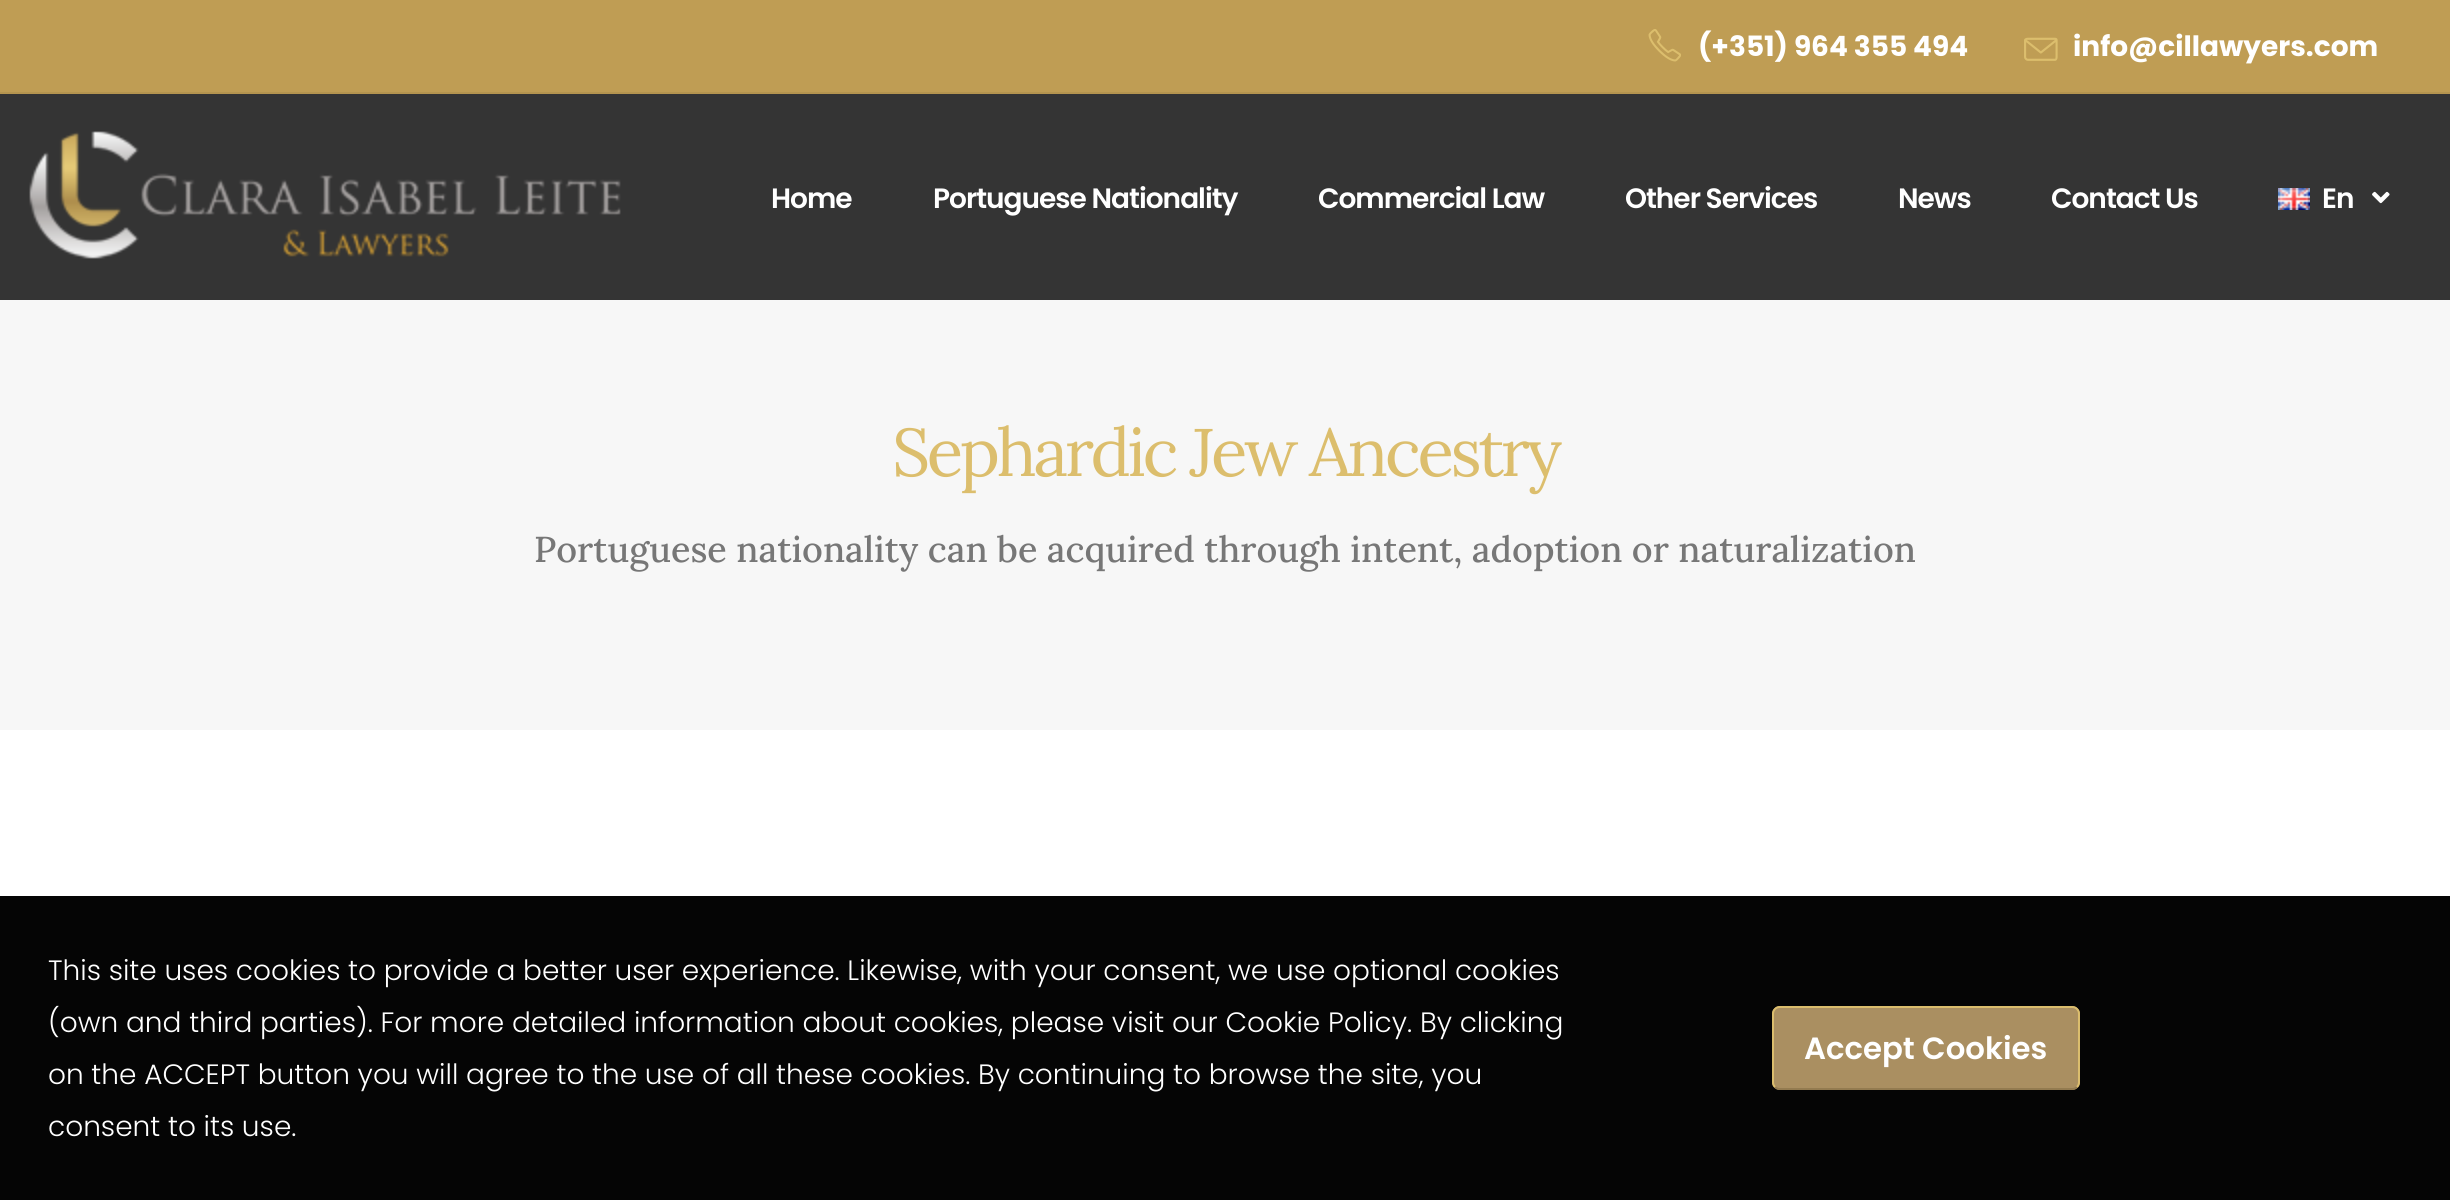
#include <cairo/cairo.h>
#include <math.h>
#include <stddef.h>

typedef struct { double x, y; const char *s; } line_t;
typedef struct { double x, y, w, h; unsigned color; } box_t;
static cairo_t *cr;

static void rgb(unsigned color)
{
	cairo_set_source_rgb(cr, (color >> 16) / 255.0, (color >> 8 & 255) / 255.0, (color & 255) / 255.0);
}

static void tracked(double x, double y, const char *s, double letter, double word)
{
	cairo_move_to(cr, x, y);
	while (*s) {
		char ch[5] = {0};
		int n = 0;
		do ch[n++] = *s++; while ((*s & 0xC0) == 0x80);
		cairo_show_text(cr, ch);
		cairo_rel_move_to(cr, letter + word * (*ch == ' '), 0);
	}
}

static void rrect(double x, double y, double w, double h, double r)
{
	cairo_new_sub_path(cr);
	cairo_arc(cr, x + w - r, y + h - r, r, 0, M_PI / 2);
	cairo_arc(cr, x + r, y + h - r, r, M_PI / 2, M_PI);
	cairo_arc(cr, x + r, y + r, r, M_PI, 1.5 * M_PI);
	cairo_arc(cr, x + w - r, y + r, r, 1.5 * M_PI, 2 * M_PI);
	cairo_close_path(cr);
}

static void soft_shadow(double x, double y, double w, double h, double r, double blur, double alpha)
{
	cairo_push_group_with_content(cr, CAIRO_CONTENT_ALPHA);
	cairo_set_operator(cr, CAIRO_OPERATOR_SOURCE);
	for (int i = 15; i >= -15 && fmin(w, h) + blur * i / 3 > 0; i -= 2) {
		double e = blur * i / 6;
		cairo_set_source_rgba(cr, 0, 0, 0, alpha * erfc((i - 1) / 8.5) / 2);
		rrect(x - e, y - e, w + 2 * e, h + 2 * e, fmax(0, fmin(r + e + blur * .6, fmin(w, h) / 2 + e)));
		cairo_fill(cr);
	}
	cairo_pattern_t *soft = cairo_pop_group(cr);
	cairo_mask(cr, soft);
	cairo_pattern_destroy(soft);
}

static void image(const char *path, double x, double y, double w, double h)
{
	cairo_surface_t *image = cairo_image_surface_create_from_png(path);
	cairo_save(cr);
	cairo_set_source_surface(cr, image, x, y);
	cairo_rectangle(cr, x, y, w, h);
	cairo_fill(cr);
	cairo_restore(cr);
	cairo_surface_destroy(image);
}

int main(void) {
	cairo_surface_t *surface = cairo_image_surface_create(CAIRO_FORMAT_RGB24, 2450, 1200);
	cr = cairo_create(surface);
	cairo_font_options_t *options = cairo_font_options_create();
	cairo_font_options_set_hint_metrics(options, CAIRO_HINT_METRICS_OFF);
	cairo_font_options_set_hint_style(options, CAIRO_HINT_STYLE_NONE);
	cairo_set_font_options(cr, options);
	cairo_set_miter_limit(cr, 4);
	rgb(0xffffff);
	cairo_paint(cr);
	{
		static const box_t items[] = {
			{0, 94, 2450, 206, 0x343434},
			{0, 0, 2450, 92, 0xbf9d54},
			{0, 92, 2450, 2, 0xb4944f},
		};
		for (size_t i = 0; i < sizeof items / sizeof *items; i++) {
			rgb(items[i].color);
			cairo_rectangle(cr, items[i].x, items[i].y, items[i].w, items[i].h);
			cairo_fill(cr);
		}
	}
	image("img/1.png", 1648, 29, 33, 33);
	image("img/2.png", 2024, 37, 34, 24);
	image("img/3.png", 29, 131, 592, 128);
	image("img/4.png", 2278, 188, 32, 22);
	image("img/5.png", 2372, 191, 18, 13);
	rgb(0xf7f7f7);
	cairo_rectangle(cr, 0, 300, 2450, 430);
	cairo_fill(cr);
	cairo_save(cr);
	cairo_set_fill_rule(cr, CAIRO_FILL_RULE_EVEN_ODD);
	cairo_new_path(cr);
	cairo_move_to(cr, 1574, 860);
	cairo_line_to(cr, 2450, 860);
	cairo_line_to(cr, 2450, 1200);
	cairo_line_to(cr, 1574, 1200);
	cairo_close_path(cr);
	cairo_move_to(cr, 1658, 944);
	cairo_line_to(cr, 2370, 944);
	cairo_line_to(cr, 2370, 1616);
	cairo_line_to(cr, 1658, 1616);
	cairo_close_path(cr);
	cairo_clip(cr);
	rgb(0x000000);
	soft_shadow(1668, 954, 692, 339, 0, 31, 0.14);
	cairo_restore(cr);
	cairo_set_source_rgba(cr, 0, 0, 0, 0.98);
	cairo_rectangle(cr, 0, 896, 2450, 304);
	cairo_fill(cr);
	cairo_set_source_rgba(cr, 0.678, 0.573, 0.388, 0.98);
	rrect(1772, 1006, 308, 84, 8);
	cairo_fill(cr);
	cairo_new_path(cr);
	cairo_move_to(cr, 2077, 1087);
	cairo_curve_to(cr, 2075.5, 1088.5, 2074, 1089, 2072, 1089);
	cairo_line_to(cr, 1780, 1089);
	cairo_curve_to(cr, 1778, 1089, 1776.5, 1088.5, 1775, 1087);
	rgb(0x937b50);
	cairo_stroke(cr);
	cairo_new_path(cr);
	cairo_move_to(cr, 1775, 1087);
	cairo_curve_to(cr, 1773.5, 1085.5, 1773, 1084, 1773, 1082);
	cairo_line_to(cr, 1773, 1014);
	cairo_curve_to(cr, 1773, 1012, 1773.5, 1010.5, 1775, 1009);
	cairo_curve_to(cr, 1776.5, 1007.5, 1778, 1007, 1780, 1007);
	cairo_line_to(cr, 2072, 1007);
	cairo_curve_to(cr, 2074, 1007, 2075.5, 1007.5, 2077, 1009);
	cairo_curve_to(cr, 2078.5, 1010.5, 2079, 1012, 2079, 1014);
	cairo_line_to(cr, 2079, 1082);
	cairo_curve_to(cr, 2079, 1084, 2078.5, 1085.5, 2077, 1087);
	cairo_set_source_rgba(cr, 0.863, 0.745, 0.427, 0.98);
	cairo_stroke(cr);
	cairo_select_font_face(cr, "Poppins", CAIRO_FONT_SLANT_NORMAL, CAIRO_FONT_WEIGHT_BOLD);
	cairo_set_font_size(cr, 28);
	rgb(0xffffff);
	cairo_move_to(cr, 1698, 56);
	cairo_show_text(cr, "(+351) 964 355 494");
	cairo_move_to(cr, 2073, 56);
	cairo_show_text(cr, "info@cillawyers.com");
	cairo_select_font_face(cr, "Poppins SemiBold", CAIRO_FONT_SLANT_NORMAL, CAIRO_FONT_WEIGHT_NORMAL);
	{
		static const line_t items[] = {
			{771, 208, "Home"},
			{933, 208, "Portuguese Nationality"},
			{1318, 208, "Commercial Law"},
			{1625, 208, "Other Services"},
			{1898, 208, "News"},
			{2051, 208, "Contact Us"},
			{2322, 208, "En"},
		};
		for (size_t i = 0; i < sizeof items / sizeof *items; i++) {
			tracked(items[i].x, items[i].y, items[i].s, -1, 0);
		}
	}
	cairo_select_font_face(cr, "Lora", CAIRO_FONT_SLANT_NORMAL, CAIRO_FONT_WEIGHT_NORMAL);
	cairo_set_font_size(cr, 67.25);
	rgb(0xdcbe6d);
	tracked(892, 476, "Sephardic Jew Ancestry", -3.4, 0);
	cairo_select_font_face(cr, "Lora Medium", CAIRO_FONT_SLANT_NORMAL, CAIRO_FONT_WEIGHT_NORMAL);
	cairo_set_font_size(cr, 36);
	rgb(0x777777);
	cairo_move_to(cr, 534, 562);
	cairo_show_text(cr, "Portuguese nationality can be acquired through intent, adoption or naturalization");
	cairo_select_font_face(cr, "Poppins Light", CAIRO_FONT_SLANT_NORMAL, CAIRO_FONT_WEIGHT_NORMAL);
	cairo_set_font_size(cr, 28);
	rgb(0xffffff);
	{
		static const line_t items[] = {
			{48, 980, "This site uses cookies to provide a better user experience. Likewise, with your consent, we use optional cookies"},
			{48, 1032, "(own and third parties). For more detailed information about cookies, please visit our Cookie Policy."},
			{1420, 1032, "By clicking"},
			{48, 1084, "on the ACCEPT button you will agree to the use of all these cookies."},
			{978, 1084, "By continuing to browse the site, you"},
			{48, 1136, "consent to its use."},
		};
		for (size_t i = 0; i < sizeof items / sizeof *items; i++) {
			cairo_move_to(cr, items[i].x, items[i].y);
			cairo_show_text(cr, items[i].s);
		}
	}
	cairo_select_font_face(cr, "Poppins SemiBold", CAIRO_FONT_SLANT_NORMAL, CAIRO_FONT_WEIGHT_NORMAL);
	cairo_set_font_size(cr, 30.75);
	cairo_move_to(cr, 1804, 1059);
	cairo_show_text(cr, "Accept Cookies");
	cairo_surface_write_to_png(surface, "page.png");
	cairo_font_options_destroy(options);
	cairo_destroy(cr);
	cairo_surface_destroy(surface);
	return 0;
}
